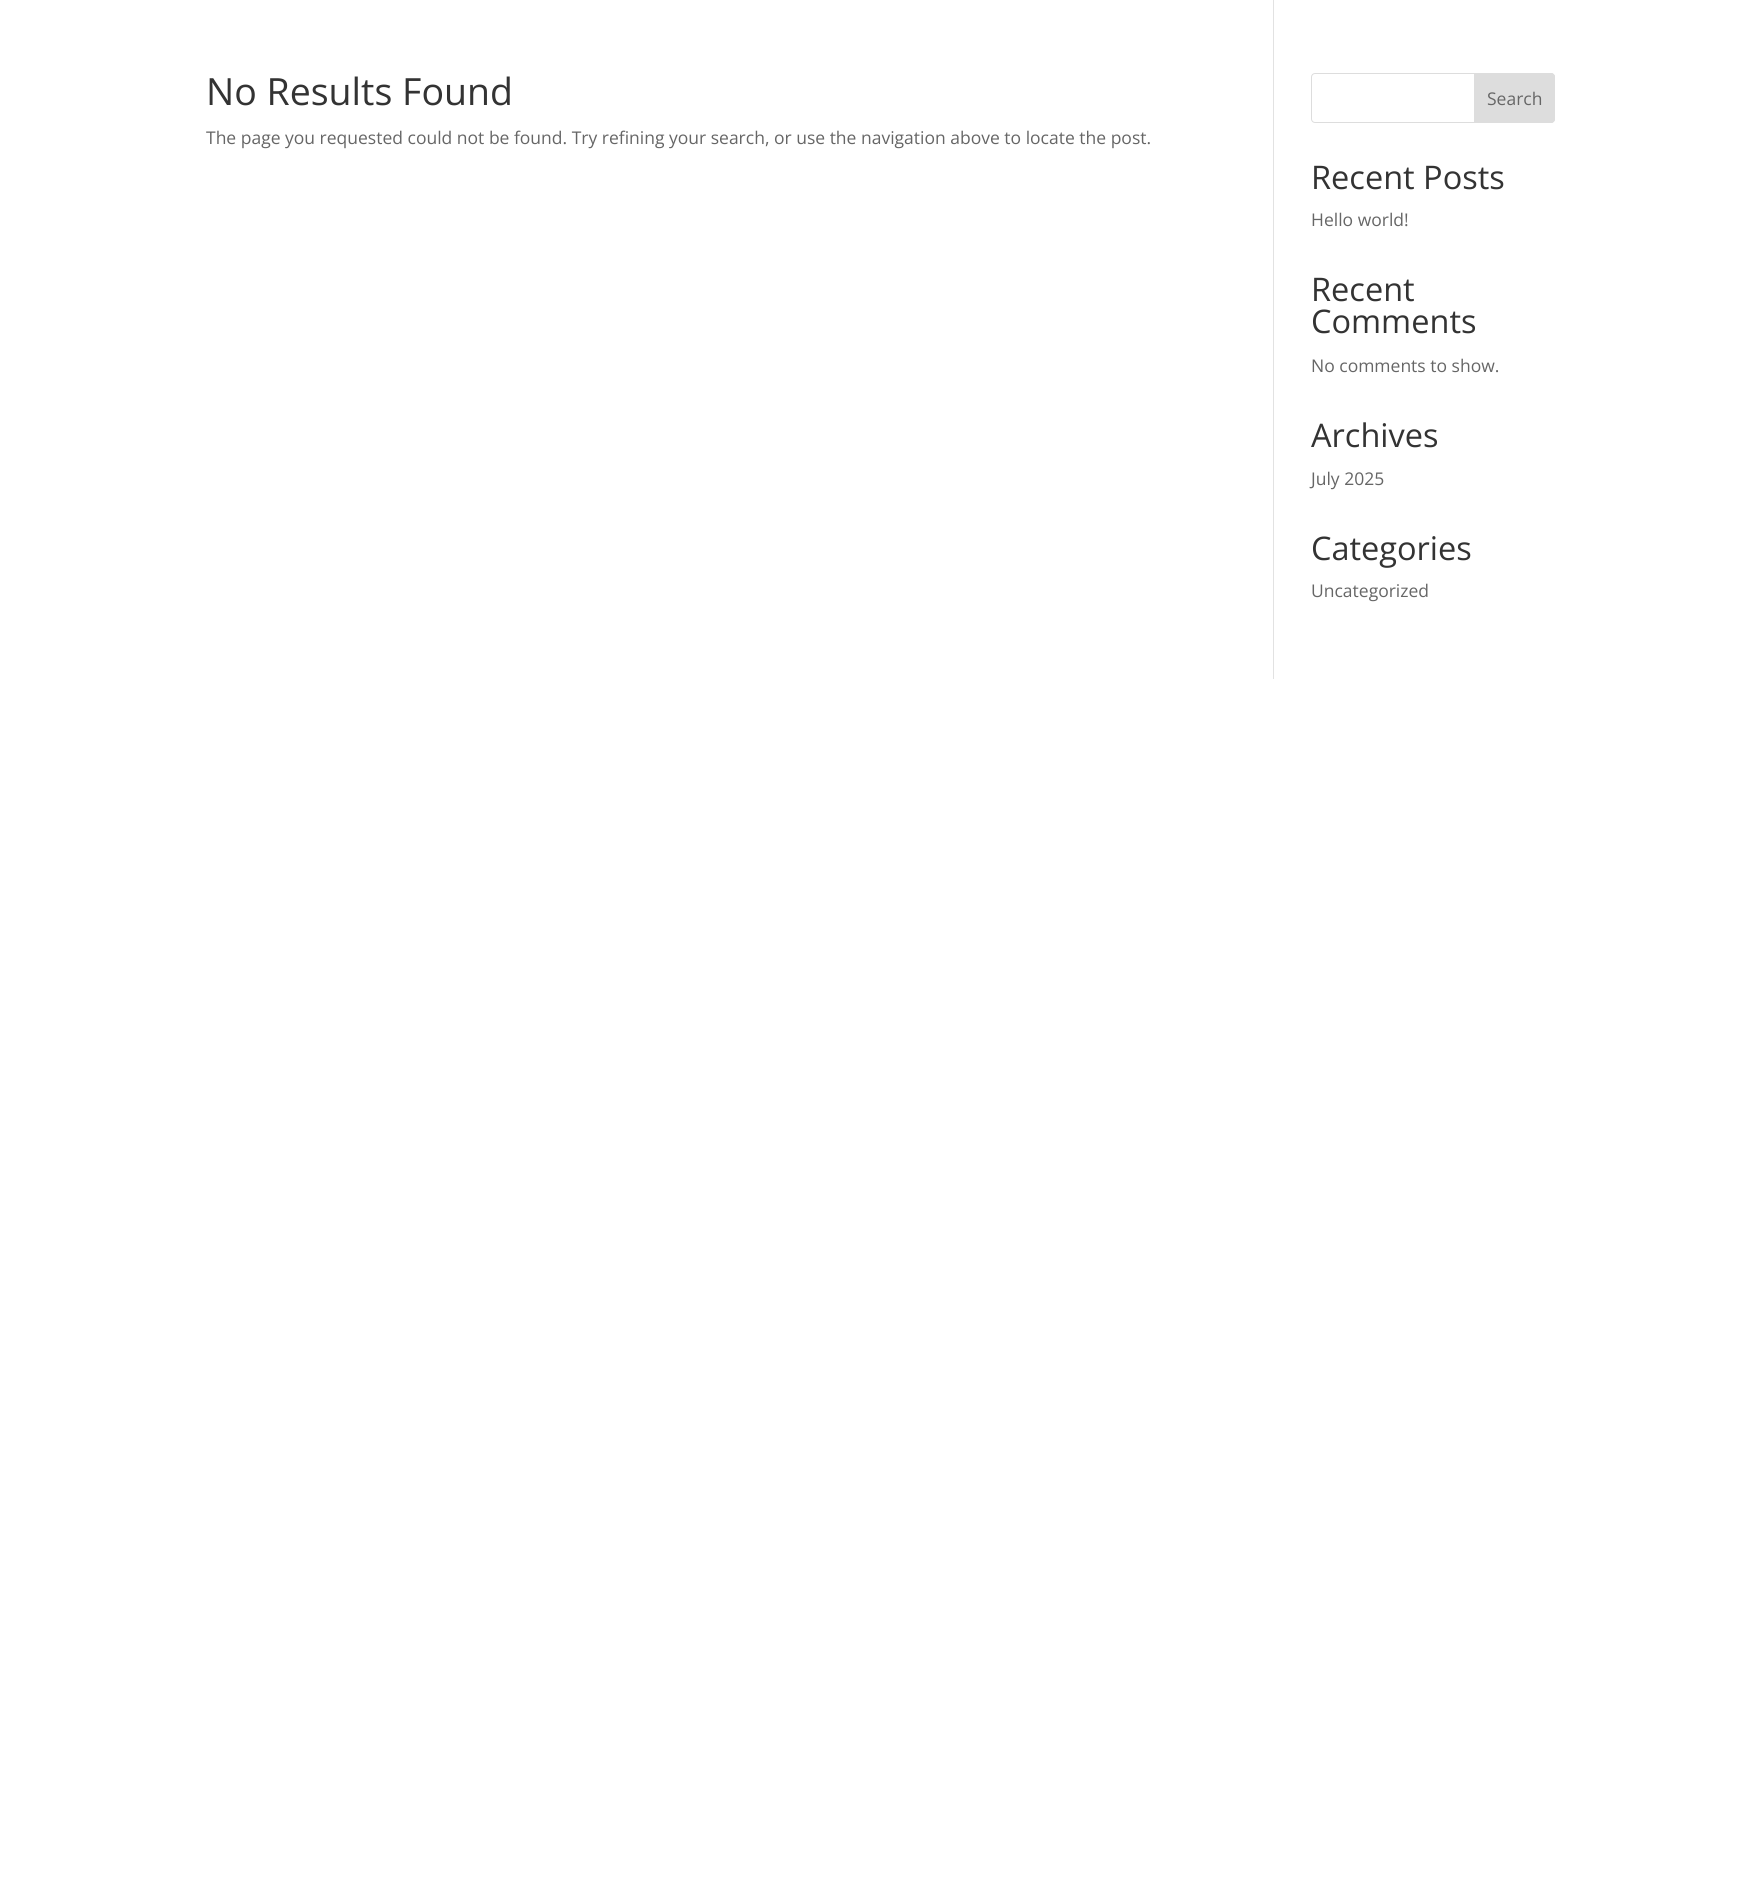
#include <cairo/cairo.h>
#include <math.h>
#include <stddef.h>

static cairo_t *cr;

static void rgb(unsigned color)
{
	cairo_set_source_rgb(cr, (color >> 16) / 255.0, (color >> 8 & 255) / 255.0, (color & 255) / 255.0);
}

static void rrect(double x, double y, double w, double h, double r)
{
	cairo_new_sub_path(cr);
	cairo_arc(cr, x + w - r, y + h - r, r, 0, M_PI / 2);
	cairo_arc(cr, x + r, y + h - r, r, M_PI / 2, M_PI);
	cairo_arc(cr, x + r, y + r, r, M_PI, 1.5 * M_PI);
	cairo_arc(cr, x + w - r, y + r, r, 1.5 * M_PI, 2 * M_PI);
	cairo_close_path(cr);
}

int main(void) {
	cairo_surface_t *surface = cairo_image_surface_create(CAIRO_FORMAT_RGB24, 1761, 1898);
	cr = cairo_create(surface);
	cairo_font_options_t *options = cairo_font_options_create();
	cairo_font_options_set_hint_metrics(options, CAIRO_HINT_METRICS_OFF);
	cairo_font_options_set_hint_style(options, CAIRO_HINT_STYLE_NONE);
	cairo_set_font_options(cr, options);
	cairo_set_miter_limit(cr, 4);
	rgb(0xffffff);
	cairo_paint(cr);
	rgb(0xe2e2e2);
	cairo_rectangle(cr, 1273, 0, 1, 679);
	cairo_fill(cr);
	rrect(1311.5, 73.5, 243, 49, 3.5);
	rgb(0xdddddd);
	cairo_set_line_width(cr, 1);
	cairo_stroke(cr);
	cairo_new_path(cr);
	cairo_move_to(cr, 1474.5, 73.5);
	cairo_line_to(cr, 1551, 73.5);
	cairo_curve_to(cr, 1553, 73.5, 1554.5, 75, 1554.5, 77);
	cairo_line_to(cr, 1554.5, 119);
	cairo_curve_to(cr, 1554.5, 121, 1553, 122.5, 1551, 122.5);
	cairo_line_to(cr, 1474.5, 122.5);
	cairo_close_path(cr);
	cairo_fill_preserve(cr);
	cairo_stroke(cr);
	cairo_select_font_face(cr, "Open Sans", CAIRO_FONT_SLANT_NORMAL, CAIRO_FONT_WEIGHT_NORMAL);
	cairo_set_font_size(cr, 37.5);
	rgb(0x333333);
	cairo_move_to(cr, 206, 105);
	cairo_show_text(cr, "No Results Found");
	cairo_set_font_size(cr, 17.5);
	rgb(0x666666);
	cairo_move_to(cr, 206, 144);
	cairo_show_text(cr, "The page you requested could not be found. Try refining your search, or use the navigation above to locate the post.");
	cairo_move_to(cr, 1487, 105);
	cairo_show_text(cr, "Search");
	cairo_set_font_size(cr, 32.5);
	rgb(0x333333);
	cairo_move_to(cr, 1311, 189);
	cairo_show_text(cr, "Recent Posts");
	cairo_set_font_size(cr, 17.5);
	rgb(0x666666);
	cairo_move_to(cr, 1311, 226);
	cairo_show_text(cr, "Hello world!");
	cairo_set_font_size(cr, 32.5);
	rgb(0x333333);
	cairo_move_to(cr, 1311, 301);
	cairo_show_text(cr, "Recent");
	cairo_move_to(cr, 1311, 333);
	cairo_show_text(cr, "Comments");
	cairo_set_font_size(cr, 17.5);
	rgb(0x666666);
	cairo_move_to(cr, 1311, 372);
	cairo_show_text(cr, "No comments to show.");
	cairo_set_font_size(cr, 32.5);
	rgb(0x333333);
	cairo_move_to(cr, 1311, 447);
	cairo_show_text(cr, "Archives");
	cairo_set_font_size(cr, 17.5);
	rgb(0x666666);
	cairo_move_to(cr, 1311, 485);
	cairo_show_text(cr, "July 2025");
	cairo_set_font_size(cr, 32.5);
	rgb(0x333333);
	cairo_move_to(cr, 1311, 560);
	cairo_show_text(cr, "Categories");
	cairo_set_font_size(cr, 17.5);
	rgb(0x666666);
	cairo_move_to(cr, 1311, 597);
	cairo_show_text(cr, "Uncategorized");
	cairo_surface_write_to_png(surface, "page.png");
	cairo_font_options_destroy(options);
	cairo_destroy(cr);
	cairo_surface_destroy(surface);
	return 0;
}
